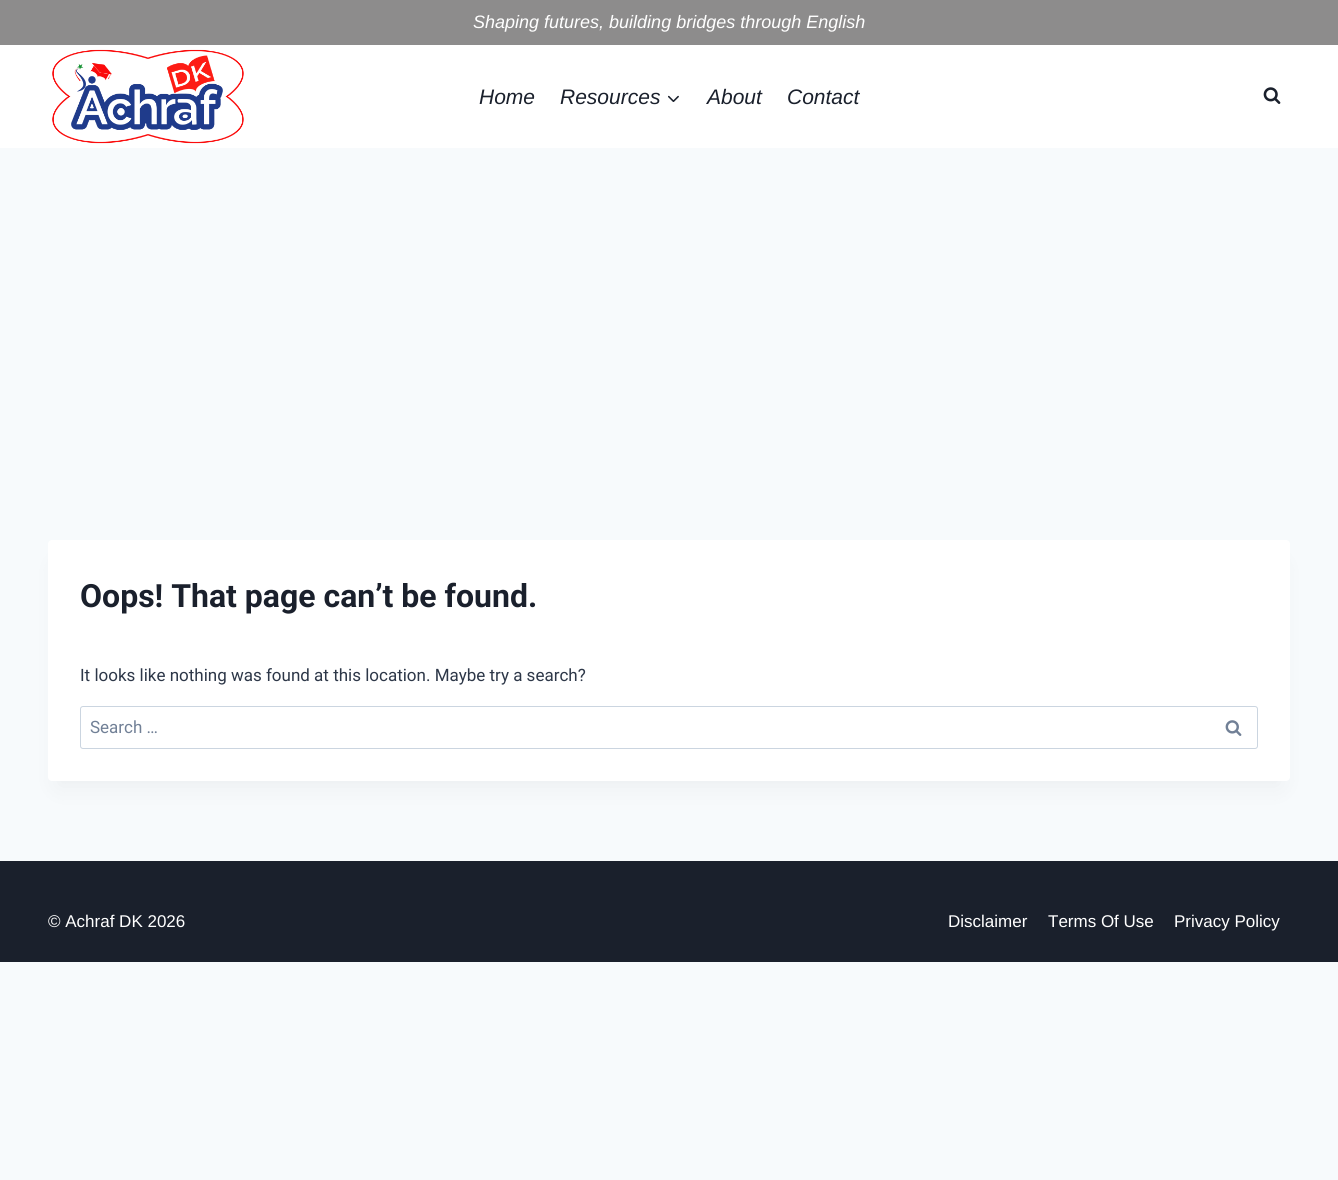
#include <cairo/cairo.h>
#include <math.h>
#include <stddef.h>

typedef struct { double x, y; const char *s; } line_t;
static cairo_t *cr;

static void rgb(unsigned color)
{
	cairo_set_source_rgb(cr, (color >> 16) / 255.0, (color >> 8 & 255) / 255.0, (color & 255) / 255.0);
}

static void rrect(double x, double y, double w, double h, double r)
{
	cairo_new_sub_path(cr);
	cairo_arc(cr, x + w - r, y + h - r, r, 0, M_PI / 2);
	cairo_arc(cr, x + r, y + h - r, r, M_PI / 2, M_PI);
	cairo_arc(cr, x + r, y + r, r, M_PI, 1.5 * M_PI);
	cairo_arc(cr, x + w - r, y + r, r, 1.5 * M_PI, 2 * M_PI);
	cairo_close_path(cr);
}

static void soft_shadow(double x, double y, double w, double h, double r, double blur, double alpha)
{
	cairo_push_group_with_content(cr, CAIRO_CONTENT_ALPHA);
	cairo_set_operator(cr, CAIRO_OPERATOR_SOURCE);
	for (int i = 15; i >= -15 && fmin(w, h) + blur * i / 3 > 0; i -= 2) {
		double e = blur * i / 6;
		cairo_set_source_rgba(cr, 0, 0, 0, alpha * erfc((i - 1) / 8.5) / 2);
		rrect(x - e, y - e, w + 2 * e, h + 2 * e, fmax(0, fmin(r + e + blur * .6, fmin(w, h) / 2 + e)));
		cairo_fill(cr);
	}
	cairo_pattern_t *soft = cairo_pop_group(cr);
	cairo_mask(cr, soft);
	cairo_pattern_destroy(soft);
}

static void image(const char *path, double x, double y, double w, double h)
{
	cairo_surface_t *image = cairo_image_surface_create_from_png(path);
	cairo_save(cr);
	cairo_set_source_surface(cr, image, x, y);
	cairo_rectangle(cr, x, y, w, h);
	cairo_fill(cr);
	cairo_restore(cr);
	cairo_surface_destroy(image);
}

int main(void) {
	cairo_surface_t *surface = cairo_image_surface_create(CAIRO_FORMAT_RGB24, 1338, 1180);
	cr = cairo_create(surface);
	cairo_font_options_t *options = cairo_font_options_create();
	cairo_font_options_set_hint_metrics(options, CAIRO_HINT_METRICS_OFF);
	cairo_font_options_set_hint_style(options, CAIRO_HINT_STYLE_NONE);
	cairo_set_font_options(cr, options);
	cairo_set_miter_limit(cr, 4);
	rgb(0xf7fafc);
	cairo_paint(cr);
	rgb(0xffffff);
	cairo_rectangle(cr, 0, 45, 1338, 103);
	cairo_fill(cr);
	rgb(0x8d8c8c);
	cairo_rectangle(cr, 0, 0, 1338, 45);
	cairo_fill(cr);
	image("img/1.png", 52, 49, 192, 95);
	image("img/2.png", 668, 95, 11, 7);
	image("img/3.png", 1263, 87, 18, 17);
	rgb(0x000000);
	soft_shadow(58, 565, 1222, 221, 0, 12.5, 0.05);
	rgb(0xffffff);
	rrect(48, 540, 1242, 241, 4);
	cairo_fill(cr);
	rrect(80.5, 706.5, 1177, 42, 2.5);
	rgb(0xcbd5e0);
	cairo_set_line_width(cr, 1);
	cairo_stroke(cr);
	image("img/4.png", 1225, 720, 17, 16);
	rgb(0x1a202c);
	cairo_rectangle(cr, 0, 861, 1338, 101);
	cairo_fill(cr);
	cairo_select_font_face(cr, "Liberation Sans", CAIRO_FONT_SLANT_ITALIC, CAIRO_FONT_WEIGHT_NORMAL);
	cairo_set_font_size(cr, 18);
	rgb(0xffffff);
	cairo_move_to(cr, 473, 28);
	cairo_show_text(cr, "Shaping futures, building bridges through English");
	cairo_set_font_size(cr, 21);
	rgb(0x1a202c);
	{
		static const line_t items[] = {
			{479, 104, "Home"},
			{560, 104, "Resources"},
			{707, 104, "About"},
			{787, 104, "Contact"},
		};
		for (size_t i = 0; i < sizeof items / sizeof *items; i++) {
			cairo_move_to(cr, items[i].x, items[i].y);
			cairo_show_text(cr, items[i].s);
		}
	}
	cairo_select_font_face(cr, "Roboto", CAIRO_FONT_SLANT_NORMAL, CAIRO_FONT_WEIGHT_BOLD);
	cairo_set_font_size(cr, 32);
	cairo_move_to(cr, 80, 607);
	cairo_show_text(cr, "Oops! That page can’t be found.");
	cairo_select_font_face(cr, "Roboto", CAIRO_FONT_SLANT_NORMAL, CAIRO_FONT_WEIGHT_NORMAL);
	cairo_set_font_size(cr, 17);
	rgb(0x2d3748);
	cairo_move_to(cr, 80, 681);
	cairo_show_text(cr, "It looks like nothing was found at this location. Maybe try a search?");
	rgb(0x718096);
	cairo_move_to(cr, 90, 733);
	cairo_show_text(cr, "Search …");
	cairo_select_font_face(cr, "Liberation Sans", CAIRO_FONT_SLANT_NORMAL, CAIRO_FONT_WEIGHT_NORMAL);
	rgb(0xffffff);
	{
		static const line_t items[] = {
			{48, 927, "© Achraf DK 2026"},
			{948, 927, "Disclaimer"},
			{1048, 927, "Terms Of Use"},
			{1174, 927, "Privacy Policy"},
		};
		for (size_t i = 0; i < sizeof items / sizeof *items; i++) {
			cairo_move_to(cr, items[i].x, items[i].y);
			cairo_show_text(cr, items[i].s);
		}
	}
	cairo_surface_write_to_png(surface, "page.png");
	cairo_font_options_destroy(options);
	cairo_destroy(cr);
	cairo_surface_destroy(surface);
	return 0;
}
